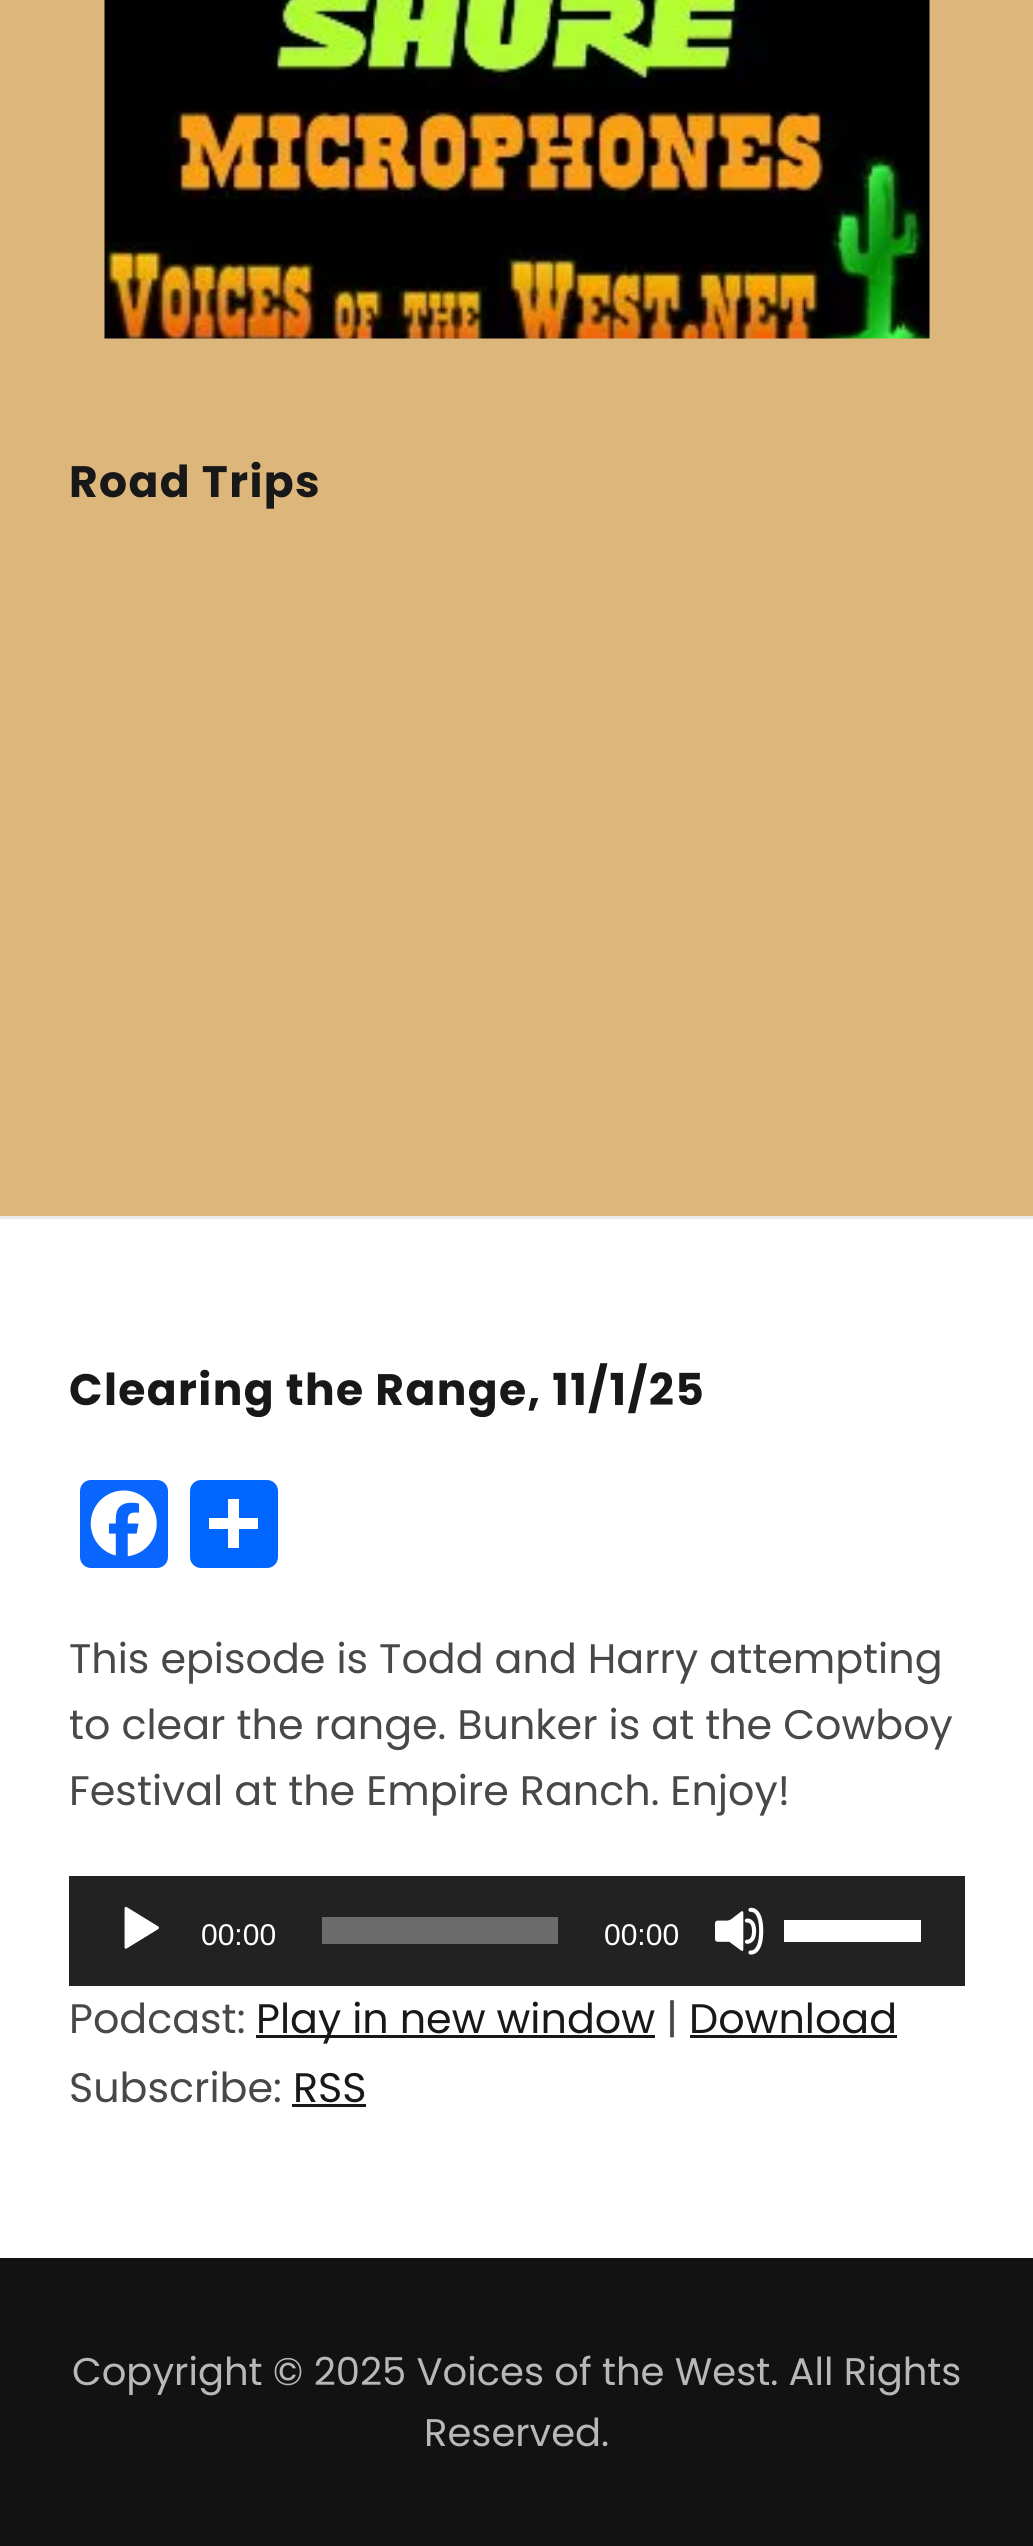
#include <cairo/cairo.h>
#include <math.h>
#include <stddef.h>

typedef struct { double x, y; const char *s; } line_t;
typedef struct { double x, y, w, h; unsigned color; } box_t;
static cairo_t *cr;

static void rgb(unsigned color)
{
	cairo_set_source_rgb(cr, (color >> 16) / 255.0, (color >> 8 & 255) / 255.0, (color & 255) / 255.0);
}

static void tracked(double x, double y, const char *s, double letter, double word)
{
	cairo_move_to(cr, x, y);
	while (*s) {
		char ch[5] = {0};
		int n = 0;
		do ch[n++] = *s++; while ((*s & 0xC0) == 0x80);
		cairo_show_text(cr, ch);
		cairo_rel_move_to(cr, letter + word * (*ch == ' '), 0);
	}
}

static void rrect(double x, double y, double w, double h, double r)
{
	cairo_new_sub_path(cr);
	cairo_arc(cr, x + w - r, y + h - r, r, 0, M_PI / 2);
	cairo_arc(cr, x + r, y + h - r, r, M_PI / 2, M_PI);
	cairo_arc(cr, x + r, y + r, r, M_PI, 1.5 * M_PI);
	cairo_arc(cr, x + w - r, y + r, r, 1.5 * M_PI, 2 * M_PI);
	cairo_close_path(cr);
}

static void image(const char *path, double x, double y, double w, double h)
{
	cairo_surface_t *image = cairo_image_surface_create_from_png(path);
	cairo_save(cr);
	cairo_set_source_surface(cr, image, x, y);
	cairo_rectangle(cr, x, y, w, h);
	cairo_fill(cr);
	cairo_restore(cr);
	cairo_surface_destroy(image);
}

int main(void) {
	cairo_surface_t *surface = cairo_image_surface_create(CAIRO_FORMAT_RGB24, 1033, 2546);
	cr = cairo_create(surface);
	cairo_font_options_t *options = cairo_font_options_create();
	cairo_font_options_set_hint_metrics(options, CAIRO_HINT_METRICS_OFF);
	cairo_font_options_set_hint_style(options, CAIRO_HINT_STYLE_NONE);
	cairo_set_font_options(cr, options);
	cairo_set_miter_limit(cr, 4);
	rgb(0xddb67c);
	cairo_paint(cr);
	image("img/1.png", 104, 0, 826, 339);
	rgb(0xffffff);
	cairo_rectangle(cr, 0, 1219, 1033, 1039);
	cairo_fill(cr);
	rgb(0xebebeb);
	cairo_rectangle(cr, 0, 1216, 1033, 3);
	cairo_fill(cr);
	rgb(0x0866ff);
	rrect(80, 1480, 88, 88, 11);
	cairo_fill(cr);
	image("img/2.png", 90, 1490, 67, 67);
	rgb(0x0166ff);
	rrect(190, 1480, 88, 88, 11);
	cairo_fill(cr);
	{
		static const box_t items[] = {
			{228, 1499, 11, 49, 0xffffff},
			{209, 1518, 49, 11, 0xffffff},
			{69, 1876, 896, 110, 0x222222},
		};
		for (size_t i = 0; i < sizeof items / sizeof *items; i++) {
			rgb(items[i].color);
			cairo_rectangle(cr, items[i].x, items[i].y, items[i].w, items[i].h);
			cairo_fill(cr);
		}
	}
	image("img/3.png", 124, 1906, 35, 43);
	rgb(0x6b6b6b);
	cairo_rectangle(cr, 322, 1917, 236, 27);
	cairo_fill(cr);
	image("img/4.png", 715, 1907, 49, 48);
	{
		static const box_t items[] = {
			{784, 1920, 137, 22, 0xffffff},
			{256, 2035, 399, 3, 0x181818},
			{690, 2035, 207, 3, 0x181818},
			{292, 2104, 74, 3, 0x181818},
			{0, 2258, 1033, 288, 0x121212},
		};
		for (size_t i = 0; i < sizeof items / sizeof *items; i++) {
			rgb(items[i].color);
			cairo_rectangle(cr, items[i].x, items[i].y, items[i].w, items[i].h);
			cairo_fill(cr);
		}
	}
	cairo_select_font_face(cr, "Poppins", CAIRO_FONT_SLANT_NORMAL, CAIRO_FONT_WEIGHT_BOLD);
	cairo_set_font_size(cr, 44);
	rgb(0x181818);
	tracked(69, 497, "Road Trips", 1.4, 0);
	tracked(69, 1405, "Clearing the Range, 11/1/25", 1.4, 0);
	cairo_select_font_face(cr, "Poppins", CAIRO_FONT_SLANT_NORMAL, CAIRO_FONT_WEIGHT_NORMAL);
	cairo_set_font_size(cr, 41.25);
	rgb(0x484848);
	{
		static const line_t items[] = {
			{69, 1673, "This episode is Todd and Harry attempting"},
			{69, 1739, "to clear the range. Bunker is at the Cowboy"},
			{69, 1805, "Festival at the Empire Ranch. Enjoy!"},
		};
		for (size_t i = 0; i < sizeof items / sizeof *items; i++) {
			cairo_move_to(cr, items[i].x, items[i].y);
			cairo_show_text(cr, items[i].s);
		}
	}
	cairo_select_font_face(cr, "Liberation Sans", CAIRO_FONT_SLANT_NORMAL, CAIRO_FONT_WEIGHT_NORMAL);
	cairo_set_font_size(cr, 30);
	rgb(0xffffff);
	cairo_move_to(cr, 201, 1945);
	cairo_show_text(cr, "00:00");
	cairo_move_to(cr, 604, 1945);
	cairo_show_text(cr, "00:00");
	cairo_select_font_face(cr, "Poppins", CAIRO_FONT_SLANT_NORMAL, CAIRO_FONT_WEIGHT_NORMAL);
	cairo_set_font_size(cr, 41.25);
	rgb(0x484848);
	cairo_move_to(cr, 69, 2033);
	cairo_show_text(cr, "Podcast:");
	rgb(0x181818);
	cairo_move_to(cr, 256, 2033);
	cairo_show_text(cr, "Play in new window");
	rgb(0x484848);
	cairo_move_to(cr, 666, 2033);
	cairo_show_text(cr, "|");
	rgb(0x181818);
	cairo_move_to(cr, 689, 2033);
	cairo_show_text(cr, "Download");
	rgb(0x484848);
	cairo_move_to(cr, 69, 2102);
	cairo_show_text(cr, "Subscribe:");
	rgb(0x181818);
	cairo_move_to(cr, 293, 2102);
	cairo_show_text(cr, "RSS");
	cairo_set_font_size(cr, 38.5);
	rgb(0xb8b8b8);
	cairo_move_to(cr, 72, 2385);
	cairo_show_text(cr, "Copyright © 2025 Voices of the West. All Rights");
	cairo_move_to(cr, 424, 2446);
	cairo_show_text(cr, "Reserved.");
	cairo_surface_write_to_png(surface, "page.png");
	cairo_font_options_destroy(options);
	cairo_destroy(cr);
	cairo_surface_destroy(surface);
	return 0;
}
